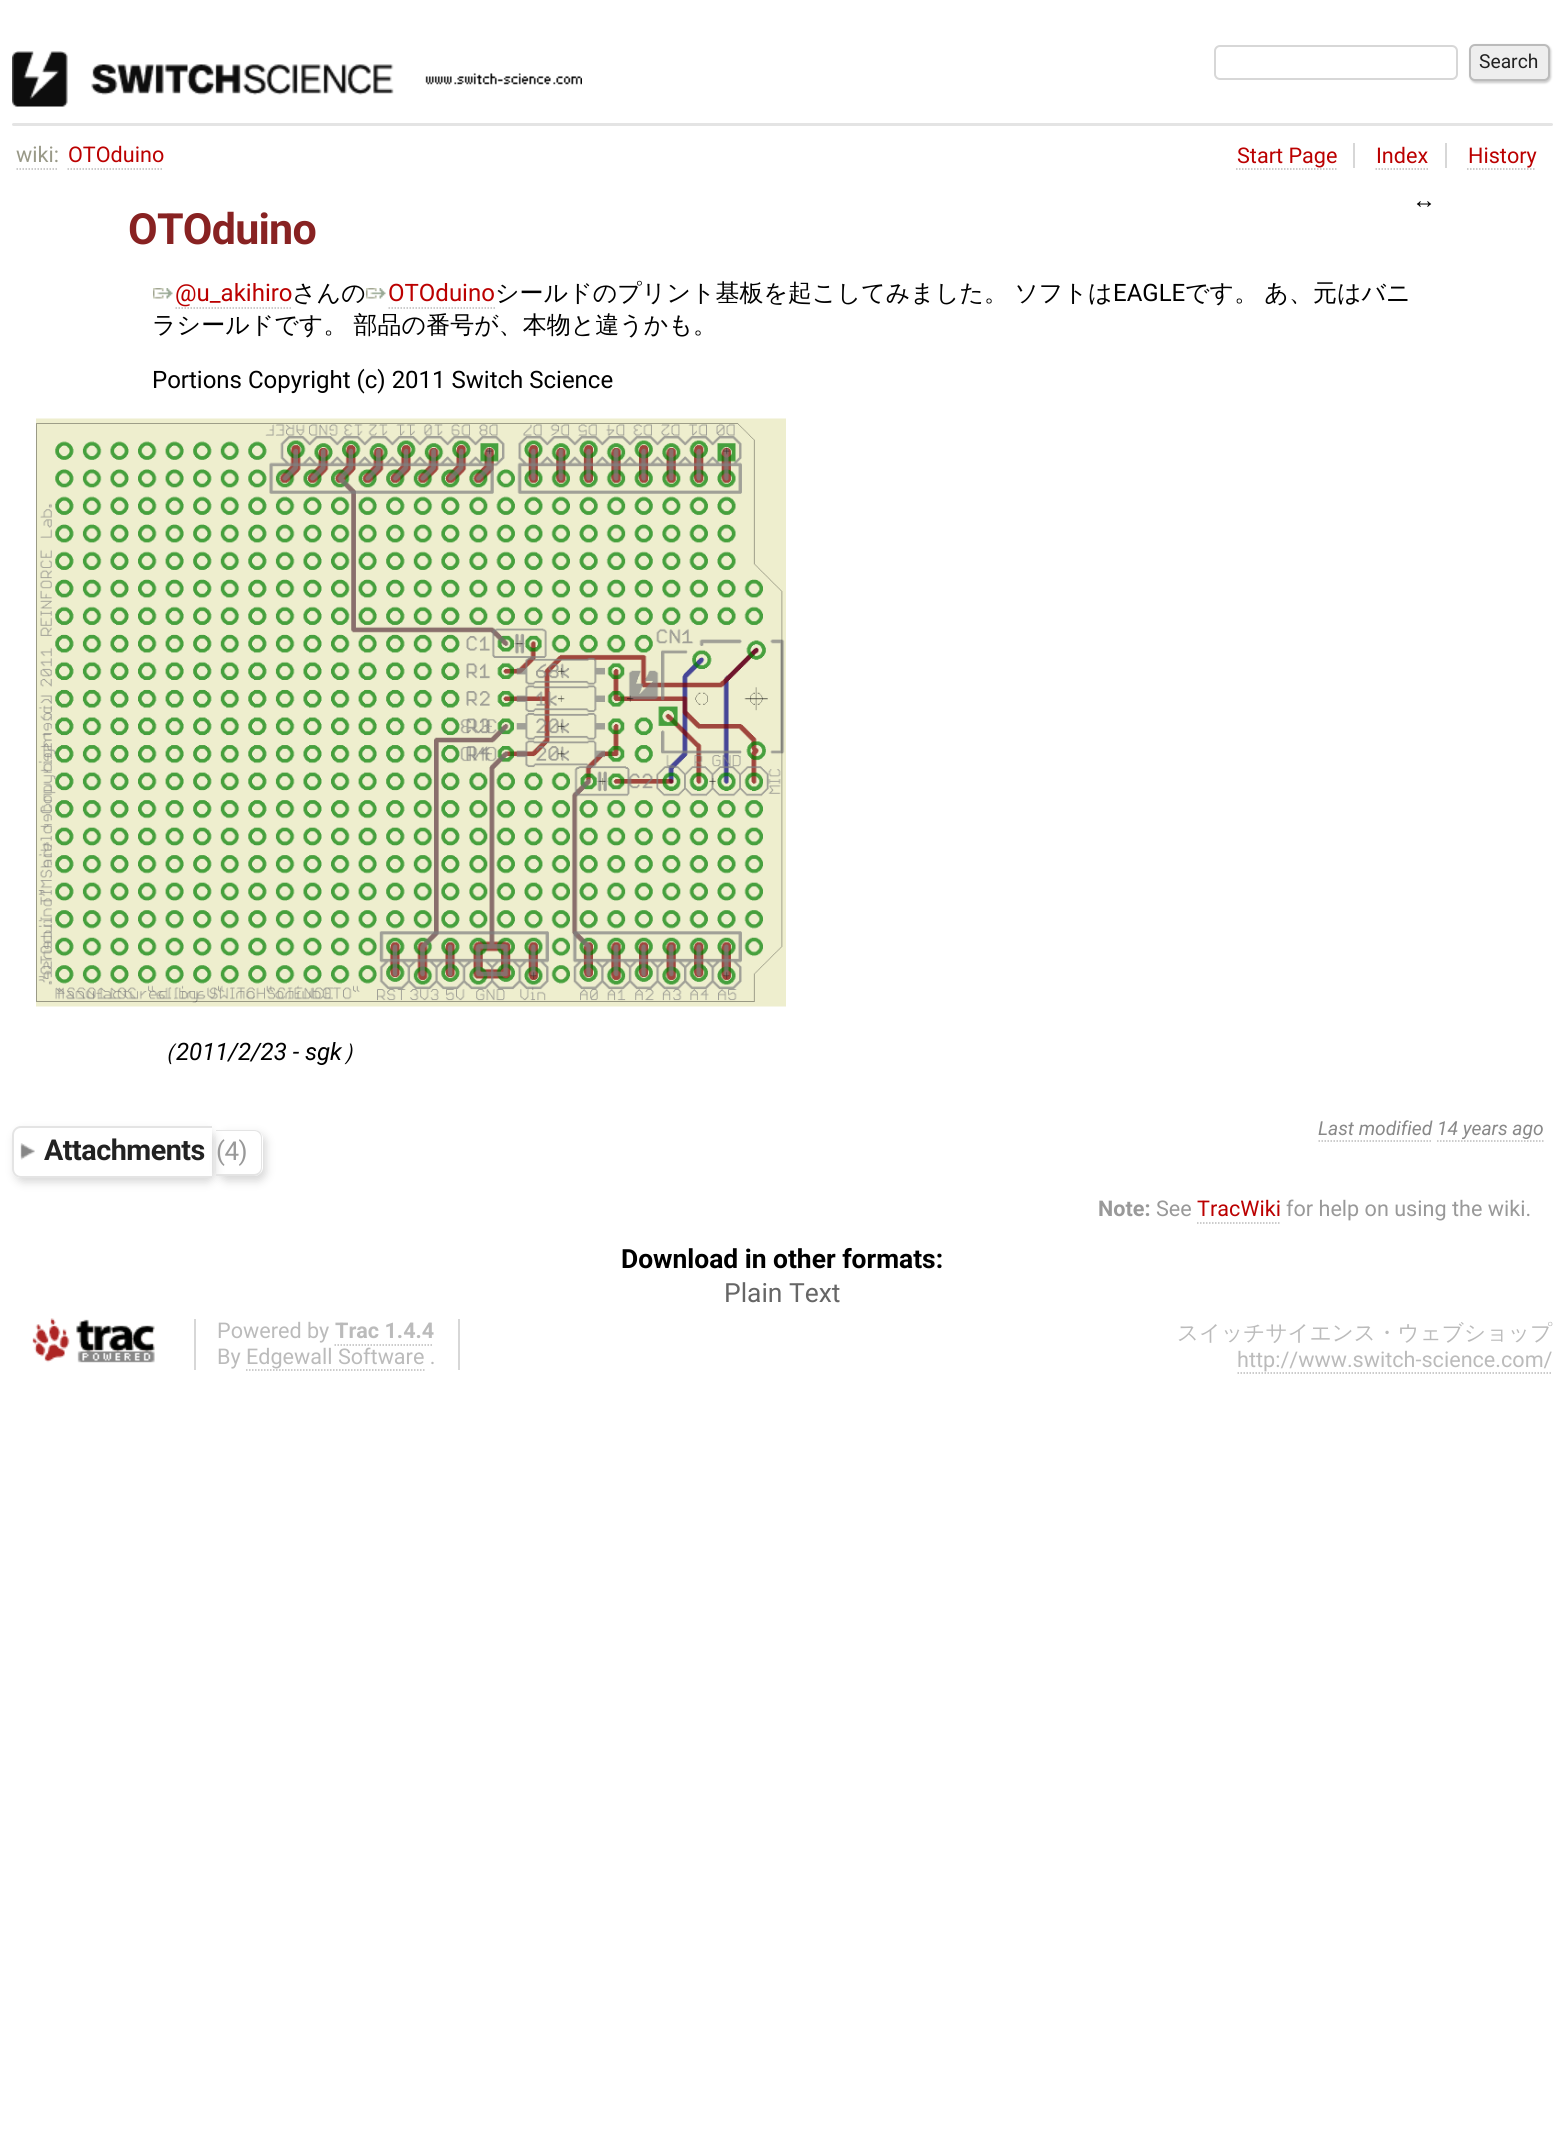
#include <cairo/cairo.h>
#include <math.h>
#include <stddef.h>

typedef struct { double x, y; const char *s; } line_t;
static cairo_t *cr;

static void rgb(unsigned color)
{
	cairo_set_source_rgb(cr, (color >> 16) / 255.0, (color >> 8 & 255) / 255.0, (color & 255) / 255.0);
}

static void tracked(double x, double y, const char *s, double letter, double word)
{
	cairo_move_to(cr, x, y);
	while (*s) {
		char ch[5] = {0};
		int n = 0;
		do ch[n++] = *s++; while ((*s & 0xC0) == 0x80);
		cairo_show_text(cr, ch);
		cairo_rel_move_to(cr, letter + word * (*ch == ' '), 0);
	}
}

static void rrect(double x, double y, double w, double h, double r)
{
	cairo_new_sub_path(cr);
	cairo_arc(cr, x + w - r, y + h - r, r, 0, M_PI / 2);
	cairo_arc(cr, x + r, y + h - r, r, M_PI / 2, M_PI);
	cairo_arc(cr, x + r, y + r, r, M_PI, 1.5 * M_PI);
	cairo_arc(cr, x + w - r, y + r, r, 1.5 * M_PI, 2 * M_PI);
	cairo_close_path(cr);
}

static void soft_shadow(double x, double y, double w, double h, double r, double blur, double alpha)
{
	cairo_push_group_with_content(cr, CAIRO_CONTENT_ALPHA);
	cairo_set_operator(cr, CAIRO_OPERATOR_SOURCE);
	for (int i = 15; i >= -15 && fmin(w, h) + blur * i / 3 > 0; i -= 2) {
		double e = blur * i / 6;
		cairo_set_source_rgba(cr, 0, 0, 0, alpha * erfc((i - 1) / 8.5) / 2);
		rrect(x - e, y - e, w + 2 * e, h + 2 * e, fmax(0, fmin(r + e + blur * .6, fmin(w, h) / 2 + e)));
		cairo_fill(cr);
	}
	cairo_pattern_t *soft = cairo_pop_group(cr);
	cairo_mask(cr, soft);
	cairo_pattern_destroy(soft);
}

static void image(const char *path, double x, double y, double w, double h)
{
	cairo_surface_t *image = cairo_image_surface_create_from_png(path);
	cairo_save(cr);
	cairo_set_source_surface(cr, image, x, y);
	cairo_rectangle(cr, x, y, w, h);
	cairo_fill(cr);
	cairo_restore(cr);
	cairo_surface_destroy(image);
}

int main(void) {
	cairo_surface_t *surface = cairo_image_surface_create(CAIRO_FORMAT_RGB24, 1564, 2137);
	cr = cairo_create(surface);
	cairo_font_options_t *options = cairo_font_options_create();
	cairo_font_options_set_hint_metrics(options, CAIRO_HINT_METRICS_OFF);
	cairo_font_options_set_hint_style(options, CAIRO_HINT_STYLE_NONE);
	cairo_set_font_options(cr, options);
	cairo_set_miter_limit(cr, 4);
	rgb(0xffffff);
	cairo_paint(cr);
	image("img/1.png", 12, 51, 570, 56);
	rrect(1215, 46, 242, 33, 5);
	rgb(0xd7d7d7);
	cairo_stroke(cr);
	rgb(0xcccccc);
	soft_shadow(1470, 45, 81, 38, 6, 1, 1);
	rgb(0xeeeeee);
	rrect(1470, 45, 79, 35, 5);
	cairo_fill_preserve(cr);
	rgb(0xbbbbbb);
	cairo_stroke(cr);
	rgb(0xe4e4e4);
	rrect(12, 123, 1541, 3, 1.5);
	cairo_fill(cr);
	cairo_new_path(cr);
	cairo_move_to(cr, 16.5, 169);
	cairo_line_to(cr, 58.5, 169);
	rgb(0xbbbbbb);
	cairo_set_line_width(cr, 1.5);
	cairo_set_dash(cr, (double[]){1.5, 1.5}, 2, 0);
	cairo_stroke(cr);
	cairo_new_path(cr);
	cairo_move_to(cr, 67.5, 169);
	cairo_line_to(cr, 163.5, 169);
	cairo_stroke(cr);
	rgb(0xd7d7d7);
	cairo_rectangle(cr, 1353, 143, 2, 25);
	cairo_fill(cr);
	cairo_new_path(cr);
	cairo_move_to(cr, 1236, 169);
	cairo_line_to(cr, 1336.5, 169);
	rgb(0xbbbbbb);
	cairo_stroke(cr);
	rgb(0xd7d7d7);
	cairo_rectangle(cr, 1445, 143, 2, 25);
	cairo_fill(cr);
	cairo_new_path(cr);
	cairo_move_to(cr, 1375.5, 169);
	cairo_line_to(cr, 1428, 169);
	rgb(0xbbbbbb);
	cairo_stroke(cr);
	cairo_new_path(cr);
	cairo_move_to(cr, 1467, 169);
	cairo_line_to(cr, 1536, 169);
	cairo_stroke(cr);
	image("img/2.png", 153, 288, 20, 11);
	cairo_new_path(cr);
	cairo_move_to(cr, 175.5, 308);
	cairo_line_to(cr, 292.5, 308);
	cairo_stroke(cr);
	image("img/3.png", 366, 288, 20, 11);
	cairo_new_path(cr);
	cairo_move_to(cr, 388.5, 308);
	cairo_line_to(cr, 495, 308);
	cairo_stroke(cr);
	image("img/4.png", 36, 418, 750, 589);
	cairo_new_path(cr);
	cairo_move_to(cr, 1318.5, 1141);
	cairo_line_to(cr, 1432.5, 1141);
	cairo_stroke(cr);
	cairo_new_path(cr);
	cairo_move_to(cr, 1437, 1141);
	cairo_line_to(cr, 1543.5, 1141);
	cairo_stroke(cr);
	cairo_save(cr);
	cairo_set_fill_rule(cr, CAIRO_FILL_RULE_EVEN_ODD);
	cairo_new_path(cr);
	cairo_move_to(cr, 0, 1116);
	cairo_line_to(cr, 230, 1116);
	cairo_line_to(cr, 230, 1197);
	cairo_line_to(cr, 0, 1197);
	cairo_close_path(cr);
	cairo_move_to(cr, 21, 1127);
	cairo_line_to(cr, 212, 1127);
	cairo_line_to(cr, 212, 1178);
	cairo_line_to(cr, 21, 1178);
	cairo_curve_to(cr, 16, 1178, 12, 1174, 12, 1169);
	cairo_line_to(cr, 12, 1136);
	cairo_curve_to(cr, 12, 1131, 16, 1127, 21, 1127);
	cairo_close_path(cr);
	cairo_clip(cr);
	rgb(0xd7d7d7);
	soft_shadow(15, 1131, 200, 51, 9, 4.5, 1);
	cairo_restore(cr);
	image("img/5.png", 20, 1143, 15, 17);
	rgb(0xe4e4e4);
	cairo_set_fill_rule(cr, CAIRO_FILL_RULE_EVEN_ODD);
	cairo_new_path(cr);
	cairo_move_to(cr, 21, 1126);
	cairo_line_to(cr, 212, 1126);
	cairo_line_to(cr, 212, 1178);
	cairo_line_to(cr, 21, 1178);
	cairo_curve_to(cr, 16, 1178, 12, 1174, 12, 1169);
	cairo_line_to(cr, 12, 1135);
	cairo_curve_to(cr, 12, 1130, 16, 1126, 21, 1126);
	cairo_close_path(cr);
	cairo_move_to(cr, 21, 1128);
	cairo_line_to(cr, 212, 1128);
	cairo_line_to(cr, 212, 1176);
	cairo_line_to(cr, 21, 1176);
	cairo_curve_to(cr, 17, 1176, 14, 1173, 14, 1169);
	cairo_line_to(cr, 14, 1135);
	cairo_curve_to(cr, 14, 1131, 17, 1128, 21, 1128);
	cairo_close_path(cr);
	cairo_fill(cr);
	cairo_save(cr);
	cairo_new_path(cr);
	cairo_move_to(cr, 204, 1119);
	cairo_line_to(cr, 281, 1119);
	cairo_line_to(cr, 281, 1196);
	cairo_line_to(cr, 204, 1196);
	cairo_close_path(cr);
	cairo_move_to(cr, 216, 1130);
	cairo_line_to(cr, 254, 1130);
	cairo_curve_to(cr, 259, 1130, 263, 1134, 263, 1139);
	cairo_line_to(cr, 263, 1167);
	cairo_curve_to(cr, 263, 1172, 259, 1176, 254, 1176);
	cairo_line_to(cr, 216, 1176);
	cairo_close_path(cr);
	cairo_clip(cr);
	rgb(0xd7d7d7);
	soft_shadow(219, 1134, 47, 47, 9, 4.5, 1);
	cairo_restore(cr);
	cairo_new_path(cr);
	cairo_move_to(cr, 216, 1130);
	cairo_line_to(cr, 254, 1130);
	cairo_curve_to(cr, 259, 1130, 262, 1133, 262, 1138);
	cairo_line_to(cr, 262, 1167);
	cairo_curve_to(cr, 262, 1172, 259, 1176, 254, 1176);
	cairo_line_to(cr, 216, 1176);
	cairo_close_path(cr);
	cairo_move_to(cr, 216, 1131);
	cairo_line_to(cr, 254, 1131);
	cairo_curve_to(cr, 258, 1131, 261, 1134, 261, 1138);
	cairo_line_to(cr, 261, 1167);
	cairo_curve_to(cr, 261, 1171, 258, 1174, 254, 1174);
	cairo_line_to(cr, 216, 1174);
	cairo_close_path(cr);
	cairo_fill(cr);
	cairo_new_path(cr);
	cairo_move_to(cr, 1197, 1223);
	cairo_line_to(cr, 1281, 1223);
	rgb(0xbbbbbb);
	cairo_stroke(cr);
	image("img/6.png", 32, 1318, 123, 45);
	rgb(0xd7d7d7);
	cairo_rectangle(cr, 458, 1319, 2, 51);
	cairo_fill(cr);
	cairo_rectangle(cr, 194, 1319, 2, 51);
	cairo_fill(cr);
	cairo_new_path(cr);
	cairo_move_to(cr, 334.5, 1345);
	cairo_line_to(cr, 433.5, 1345);
	rgb(0xbbbbbb);
	cairo_stroke(cr);
	cairo_new_path(cr);
	cairo_move_to(cr, 246, 1370);
	cairo_line_to(cr, 424.5, 1370);
	cairo_stroke(cr);
	cairo_new_path(cr);
	cairo_move_to(cr, 1237.5, 1373);
	cairo_line_to(cr, 1552.5, 1373);
	cairo_stroke(cr);
	cairo_select_font_face(cr, "Roboto", CAIRO_FONT_SLANT_NORMAL, CAIRO_FONT_WEIGHT_NORMAL);
	cairo_set_font_size(cr, 19.25);
	rgb(0x222222);
	cairo_move_to(cr, 1479, 68);
	cairo_show_text(cr, "Search");
	cairo_set_font_size(cr, 21.6);
	rgb(0x999988);
	cairo_move_to(cr, 16, 162);
	cairo_show_text(cr, "wiki:");
	rgb(0xbb0000);
	{
		static const line_t items[] = {
			{68, 162, "OTOduino"},
			{1237, 163, "Start Page"},
			{1376, 163, "Index"},
			{1468, 163, "History"},
		};
		for (size_t i = 0; i < sizeof items / sizeof *items; i++) {
			cairo_move_to(cr, items[i].x, items[i].y);
			cairo_show_text(cr, items[i].s);
		}
	}
	cairo_select_font_face(cr, "Liberation Sans", CAIRO_FONT_SLANT_NORMAL, CAIRO_FONT_WEIGHT_NORMAL);
	cairo_set_font_size(cr, 24);
	rgb(0x000000);
	cairo_move_to(cr, 1412, 208);
	cairo_show_text(cr, "↔");
	cairo_select_font_face(cr, "Roboto", CAIRO_FONT_SLANT_NORMAL, CAIRO_FONT_WEIGHT_BOLD);
	cairo_set_font_size(cr, 43);
	rgb(0x882222);
	tracked(128, 244, "OTOduino", -0.75, 0);
	cairo_select_font_face(cr, "Roboto", CAIRO_FONT_SLANT_NORMAL, CAIRO_FONT_WEIGHT_NORMAL);
	cairo_set_font_size(cr, 24);
	rgb(0xbb0000);
	cairo_move_to(cr, 175, 301);
	cairo_show_text(cr, "@u_akihiro");
	cairo_select_font_face(cr, "WenQuanYi Zen Hei Medium", CAIRO_FONT_SLANT_NORMAL, CAIRO_FONT_WEIGHT_NORMAL);
	rgb(0x000000);
	cairo_move_to(cr, 292, 301);
	cairo_show_text(cr, "さんの");
	cairo_select_font_face(cr, "Roboto", CAIRO_FONT_SLANT_NORMAL, CAIRO_FONT_WEIGHT_NORMAL);
	rgb(0xbb0000);
	cairo_move_to(cr, 388, 301);
	cairo_show_text(cr, "OTOduino");
	cairo_select_font_face(cr, "WenQuanYi Zen Hei Medium", CAIRO_FONT_SLANT_NORMAL, CAIRO_FONT_WEIGHT_NORMAL);
	rgb(0x000000);
	tracked(495, 301, "シールドのプリント基板を起こしてみました。 ソフトは", 0, -1);
	cairo_select_font_face(cr, "Roboto", CAIRO_FONT_SLANT_NORMAL, CAIRO_FONT_WEIGHT_NORMAL);
	cairo_move_to(cr, 1113, 301);
	cairo_show_text(cr, "EAGLE");
	cairo_select_font_face(cr, "WenQuanYi Zen Hei Medium", CAIRO_FONT_SLANT_NORMAL, CAIRO_FONT_WEIGHT_NORMAL);
	tracked(1185, 301, "です。 あ、元はバニ", 0, -1);
	tracked(152, 333, "ラシールドです。 部品の番号が、本物と違うかも。", 0, -1);
	cairo_select_font_face(cr, "Roboto", CAIRO_FONT_SLANT_NORMAL, CAIRO_FONT_WEIGHT_NORMAL);
	cairo_move_to(cr, 152, 388);
	cairo_show_text(cr, "Portions Copyright (c) 2011 Switch Science");
	cairo_select_font_face(cr, "WenQuanYi Zen Hei Medium", CAIRO_FONT_SLANT_ITALIC, CAIRO_FONT_WEIGHT_NORMAL);
	cairo_move_to(cr, 152, 1060);
	cairo_show_text(cr, "（");
	cairo_select_font_face(cr, "Roboto", CAIRO_FONT_SLANT_ITALIC, CAIRO_FONT_WEIGHT_NORMAL);
	cairo_move_to(cr, 176, 1060);
	cairo_show_text(cr, "2011/2/23 - sgk");
	cairo_select_font_face(cr, "WenQuanYi Zen Hei Medium", CAIRO_FONT_SLANT_ITALIC, CAIRO_FONT_WEIGHT_NORMAL);
	cairo_move_to(cr, 342, 1060);
	cairo_show_text(cr, "）");
	cairo_select_font_face(cr, "Roboto", CAIRO_FONT_SLANT_ITALIC, CAIRO_FONT_WEIGHT_NORMAL);
	cairo_set_font_size(cr, 19.25);
	rgb(0x888888);
	cairo_move_to(cr, 1318, 1135);
	cairo_show_text(cr, "Last modified 14 years ago");
	cairo_select_font_face(cr, "Roboto", CAIRO_FONT_SLANT_NORMAL, CAIRO_FONT_WEIGHT_BOLD);
	cairo_set_font_size(cr, 28.75);
	rgb(0x222222);
	tracked(44, 1160, "Attachments", -0.5, 0);
	cairo_select_font_face(cr, "Roboto", CAIRO_FONT_SLANT_NORMAL, CAIRO_FONT_WEIGHT_NORMAL);
	cairo_set_font_size(cr, 26);
	rgb(0x999999);
	tracked(216, 1160, "(4)", -0.5, 0);
	cairo_select_font_face(cr, "Roboto", CAIRO_FONT_SLANT_NORMAL, CAIRO_FONT_WEIGHT_BOLD);
	cairo_set_font_size(cr, 21.6);
	cairo_move_to(cr, 1098, 1216);
	cairo_show_text(cr, "Note:");
	cairo_select_font_face(cr, "Roboto", CAIRO_FONT_SLANT_NORMAL, CAIRO_FONT_WEIGHT_NORMAL);
	cairo_move_to(cr, 1156, 1216);
	cairo_show_text(cr, "See");
	rgb(0xbb0000);
	cairo_move_to(cr, 1197, 1216);
	cairo_show_text(cr, "TracWiki");
	rgb(0x999999);
	cairo_move_to(cr, 1286, 1216);
	cairo_show_text(cr, "for help on using the wiki.");
	cairo_select_font_face(cr, "Roboto", CAIRO_FONT_SLANT_NORMAL, CAIRO_FONT_WEIGHT_BOLD);
	cairo_set_font_size(cr, 26.4);
	rgb(0x000000);
	cairo_move_to(cr, 621, 1268);
	cairo_show_text(cr, "Download in other formats:");
	cairo_select_font_face(cr, "Roboto", CAIRO_FONT_SLANT_NORMAL, CAIRO_FONT_WEIGHT_NORMAL);
	rgb(0x666666);
	cairo_move_to(cr, 724, 1302);
	cairo_show_text(cr, "Plain Text");
	cairo_set_font_size(cr, 21.6);
	rgb(0xbbbbbb);
	cairo_move_to(cr, 217, 1338);
	cairo_show_text(cr, "Powered by");
	cairo_select_font_face(cr, "Roboto", CAIRO_FONT_SLANT_NORMAL, CAIRO_FONT_WEIGHT_BOLD);
	cairo_move_to(cr, 335, 1338);
	cairo_show_text(cr, "Trac 1.4.4");
	cairo_select_font_face(cr, "Roboto", CAIRO_FONT_SLANT_NORMAL, CAIRO_FONT_WEIGHT_NORMAL);
	cairo_move_to(cr, 217, 1364);
	cairo_show_text(cr, "By Edgewall Software .");
	cairo_select_font_face(cr, "WenQuanYi Zen Hei Medium", CAIRO_FONT_SLANT_NORMAL, CAIRO_FONT_WEIGHT_NORMAL);
	cairo_move_to(cr, 1177, 1340);
	cairo_show_text(cr, "スイッチサイエンス・ウェブショップ");
	cairo_select_font_face(cr, "Roboto", CAIRO_FONT_SLANT_NORMAL, CAIRO_FONT_WEIGHT_NORMAL);
	cairo_move_to(cr, 1237, 1367);
	cairo_show_text(cr, "http://www.switch-science.com/");
	cairo_surface_write_to_png(surface, "page.png");
	cairo_font_options_destroy(options);
	cairo_destroy(cr);
	cairo_surface_destroy(surface);
	return 0;
}
